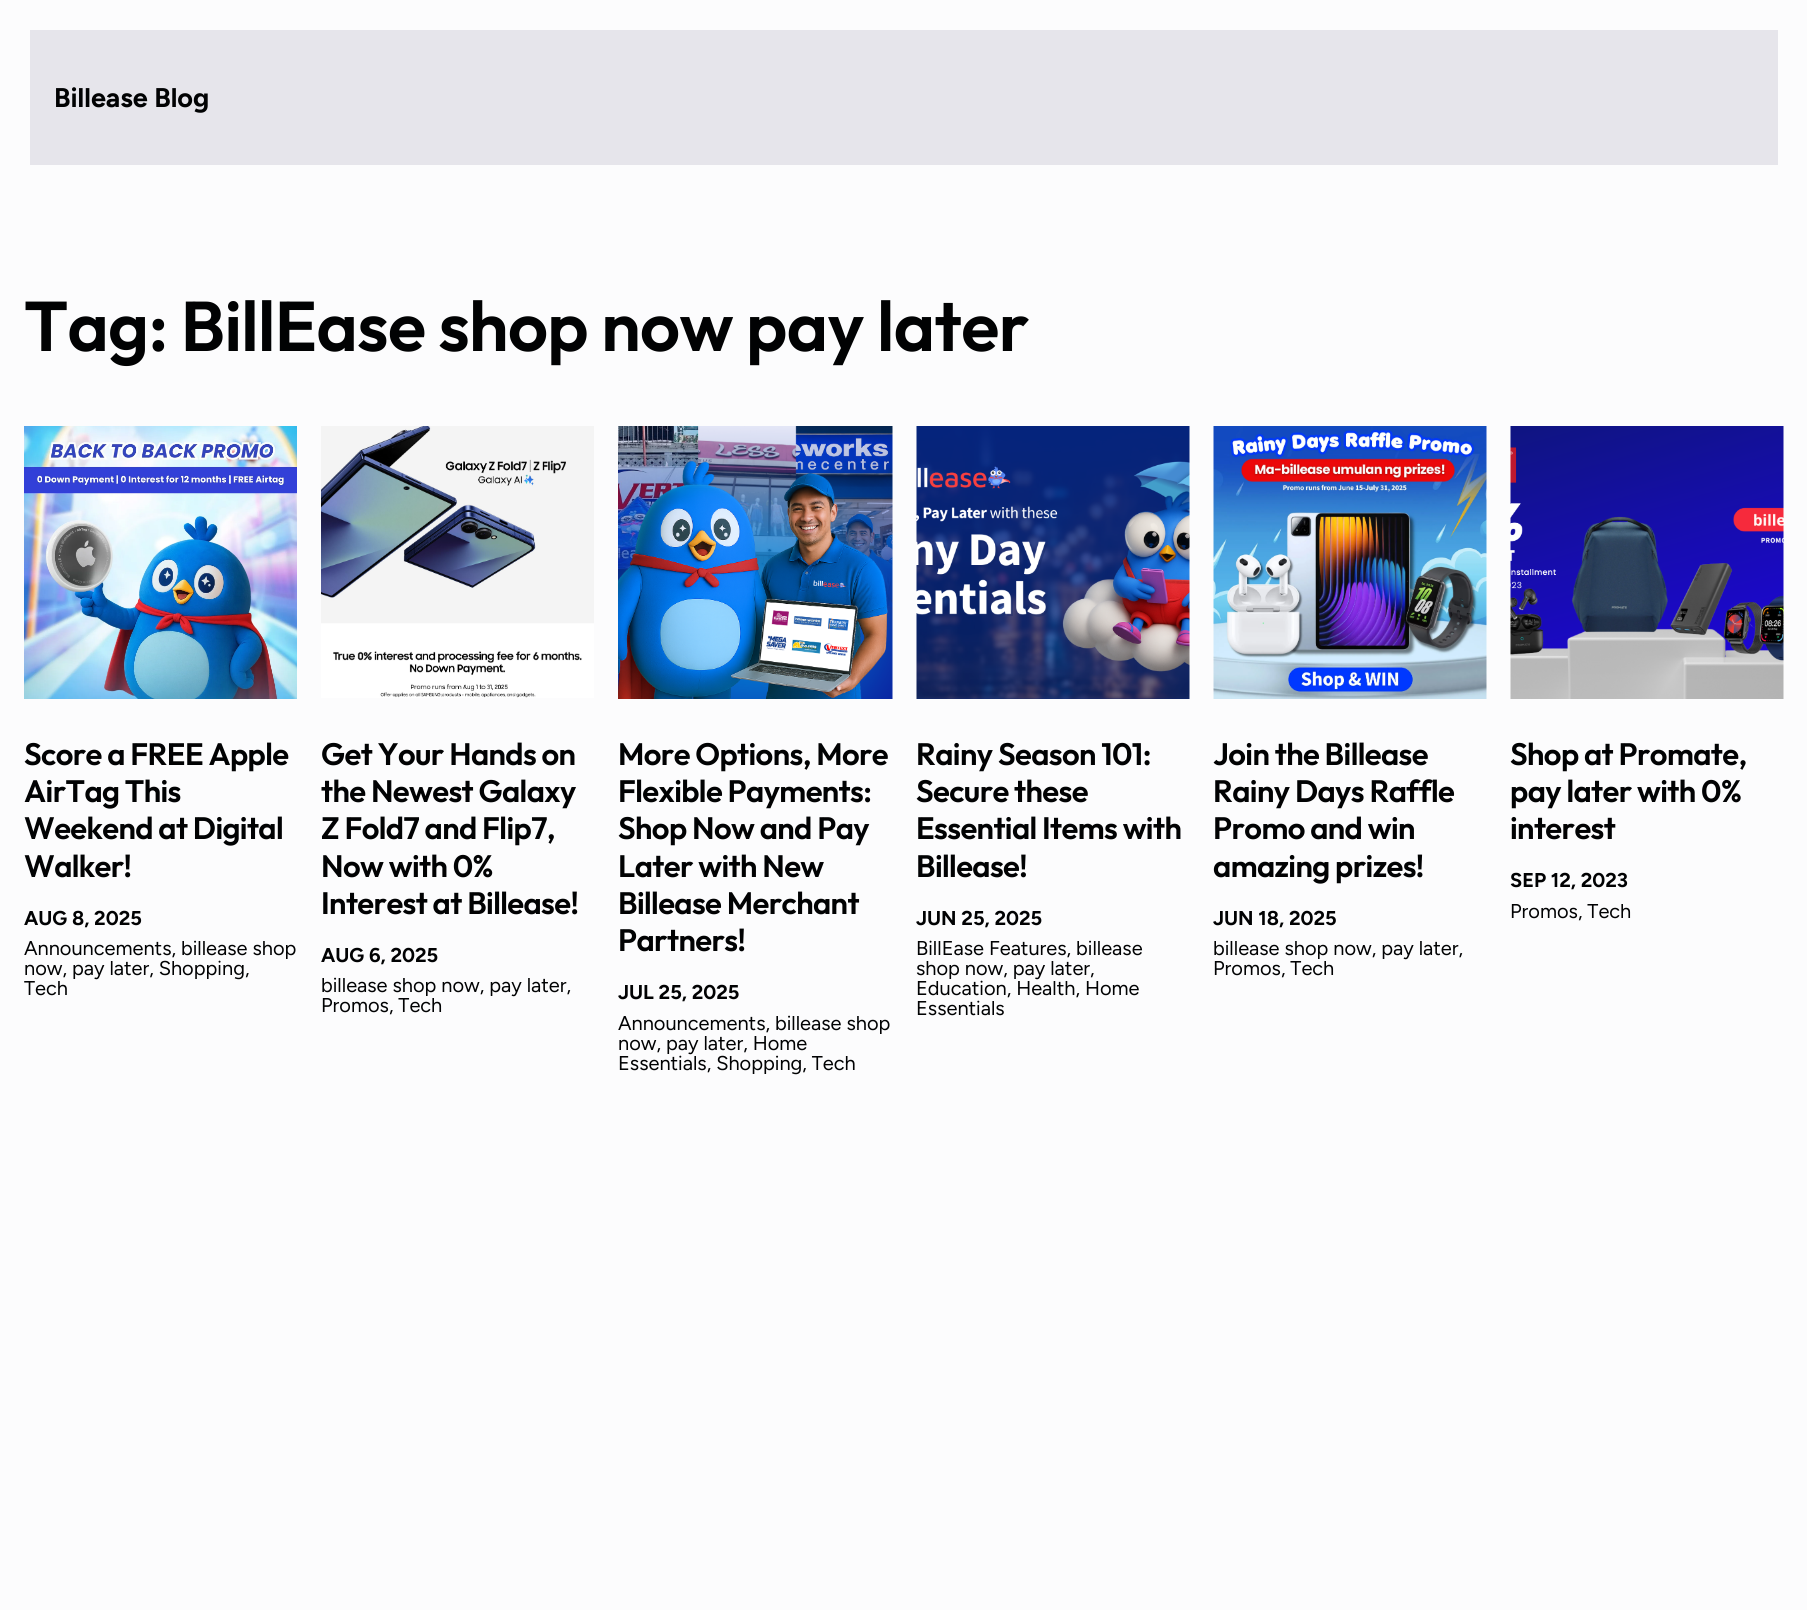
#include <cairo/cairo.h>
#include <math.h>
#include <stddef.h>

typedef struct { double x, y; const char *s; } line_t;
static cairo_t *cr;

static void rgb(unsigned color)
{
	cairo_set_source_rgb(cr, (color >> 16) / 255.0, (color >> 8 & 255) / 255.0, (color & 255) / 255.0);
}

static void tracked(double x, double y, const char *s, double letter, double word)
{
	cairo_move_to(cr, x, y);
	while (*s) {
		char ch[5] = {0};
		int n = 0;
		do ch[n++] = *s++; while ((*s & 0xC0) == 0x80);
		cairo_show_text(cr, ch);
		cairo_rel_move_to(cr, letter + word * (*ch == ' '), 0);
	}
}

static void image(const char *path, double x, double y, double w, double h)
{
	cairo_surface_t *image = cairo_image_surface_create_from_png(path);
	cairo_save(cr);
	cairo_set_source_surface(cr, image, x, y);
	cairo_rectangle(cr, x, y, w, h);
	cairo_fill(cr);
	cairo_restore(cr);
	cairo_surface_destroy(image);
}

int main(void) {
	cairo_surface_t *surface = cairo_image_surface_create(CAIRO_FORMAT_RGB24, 1807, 1610);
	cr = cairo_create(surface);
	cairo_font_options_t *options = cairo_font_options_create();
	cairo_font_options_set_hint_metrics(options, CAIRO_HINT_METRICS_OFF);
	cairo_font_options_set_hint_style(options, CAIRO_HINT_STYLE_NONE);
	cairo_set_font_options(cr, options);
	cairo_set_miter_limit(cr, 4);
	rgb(0xfcfcfd);
	cairo_paint(cr);
	rgb(0xe6e5eb);
	cairo_rectangle(cr, 30, 30, 1748, 135);
	cairo_fill(cr);
	image("img/1.png", 24, 426, 273, 273);
	image("img/2.png", 321, 426, 273, 272);
	image("img/3.png", 618, 426, 275, 273);
	image("img/4.png", 916, 426, 274, 273);
	image("img/5.png", 1213, 426, 274, 273);
	image("img/6.png", 1510, 426, 274, 273);
	cairo_select_font_face(cr, "Figtree", CAIRO_FONT_SLANT_NORMAL, CAIRO_FONT_WEIGHT_BOLD);
	cairo_set_font_size(cr, 27);
	rgb(0x010203);
	cairo_move_to(cr, 54, 107);
	cairo_show_text(cr, "Billease Blog");
	cairo_select_font_face(cr, "Outfit SemiBold", CAIRO_FONT_SLANT_NORMAL, CAIRO_FONT_WEIGHT_NORMAL);
	cairo_set_font_size(cr, 70.3);
	tracked(24, 351, "Tag: BillEase shop now pay later", -0.6, 0);
	cairo_set_font_size(cr, 31);
	{
		static const line_t items[] = {
			{24, 765, "Score a FREE Apple"},
			{24, 802, "AirTag This"},
			{24, 839, "Weekend at Digital"},
			{24, 877, "Walker!"},
		};
		for (size_t i = 0; i < sizeof items / sizeof *items; i++) {
			tracked(items[i].x, items[i].y, items[i].s, -0.6, 0);
		}
	}
	cairo_select_font_face(cr, "Figtree", CAIRO_FONT_SLANT_NORMAL, CAIRO_FONT_WEIGHT_BOLD);
	cairo_set_font_size(cr, 20);
	cairo_move_to(cr, 24, 925);
	cairo_show_text(cr, "AUG 8, 2025");
	cairo_select_font_face(cr, "Figtree", CAIRO_FONT_SLANT_NORMAL, CAIRO_FONT_WEIGHT_NORMAL);
	{
		static const line_t items[] = {
			{24, 955, "Announcements, billease shop"},
			{24, 975, "now, pay later, Shopping,"},
			{24, 995, "Tech"},
		};
		for (size_t i = 0; i < sizeof items / sizeof *items; i++) {
			cairo_move_to(cr, items[i].x, items[i].y);
			cairo_show_text(cr, items[i].s);
		}
	}
	cairo_select_font_face(cr, "Outfit SemiBold", CAIRO_FONT_SLANT_NORMAL, CAIRO_FONT_WEIGHT_NORMAL);
	cairo_set_font_size(cr, 31);
	{
		static const line_t items[] = {
			{321, 765, "Get Your Hands on"},
			{321, 802, "the Newest Galaxy"},
			{321, 839, "Z Fold7 and Flip7,"},
			{321, 877, "Now with 0%"},
			{321, 914, "Interest at Billease!"},
		};
		for (size_t i = 0; i < sizeof items / sizeof *items; i++) {
			tracked(items[i].x, items[i].y, items[i].s, -0.6, 0);
		}
	}
	cairo_select_font_face(cr, "Figtree", CAIRO_FONT_SLANT_NORMAL, CAIRO_FONT_WEIGHT_BOLD);
	cairo_set_font_size(cr, 20);
	cairo_move_to(cr, 321, 962);
	cairo_show_text(cr, "AUG 6, 2025");
	cairo_select_font_face(cr, "Figtree", CAIRO_FONT_SLANT_NORMAL, CAIRO_FONT_WEIGHT_NORMAL);
	cairo_move_to(cr, 321, 992);
	cairo_show_text(cr, "billease shop now, pay later,");
	cairo_move_to(cr, 321, 1012);
	cairo_show_text(cr, "Promos, Tech");
	cairo_select_font_face(cr, "Outfit SemiBold", CAIRO_FONT_SLANT_NORMAL, CAIRO_FONT_WEIGHT_NORMAL);
	cairo_set_font_size(cr, 31);
	{
		static const line_t items[] = {
			{618, 765, "More Options, More"},
			{618, 802, "Flexible Payments:"},
			{618, 839, "Shop Now and Pay"},
			{618, 877, "Later with New"},
			{618, 914, "Billease Merchant"},
			{618, 951, "Partners!"},
		};
		for (size_t i = 0; i < sizeof items / sizeof *items; i++) {
			tracked(items[i].x, items[i].y, items[i].s, -0.6, 0);
		}
	}
	cairo_select_font_face(cr, "Figtree", CAIRO_FONT_SLANT_NORMAL, CAIRO_FONT_WEIGHT_BOLD);
	cairo_set_font_size(cr, 20);
	cairo_move_to(cr, 618, 999);
	cairo_show_text(cr, "JUL 25, 2025");
	cairo_select_font_face(cr, "Figtree", CAIRO_FONT_SLANT_NORMAL, CAIRO_FONT_WEIGHT_NORMAL);
	{
		static const line_t items[] = {
			{618, 1030, "Announcements, billease shop"},
			{618, 1050, "now, pay later, Home"},
			{618, 1070, "Essentials, Shopping, Tech"},
		};
		for (size_t i = 0; i < sizeof items / sizeof *items; i++) {
			cairo_move_to(cr, items[i].x, items[i].y);
			cairo_show_text(cr, items[i].s);
		}
	}
	cairo_select_font_face(cr, "Outfit SemiBold", CAIRO_FONT_SLANT_NORMAL, CAIRO_FONT_WEIGHT_NORMAL);
	cairo_set_font_size(cr, 31);
	{
		static const line_t items[] = {
			{916, 765, "Rainy Season 101:"},
			{916, 802, "Secure these"},
			{916, 839, "Essential Items with"},
			{916, 877, "Billease!"},
		};
		for (size_t i = 0; i < sizeof items / sizeof *items; i++) {
			tracked(items[i].x, items[i].y, items[i].s, -0.6, 0);
		}
	}
	cairo_select_font_face(cr, "Figtree", CAIRO_FONT_SLANT_NORMAL, CAIRO_FONT_WEIGHT_BOLD);
	cairo_set_font_size(cr, 20);
	cairo_move_to(cr, 916, 925);
	cairo_show_text(cr, "JUN 25, 2025");
	cairo_select_font_face(cr, "Figtree", CAIRO_FONT_SLANT_NORMAL, CAIRO_FONT_WEIGHT_NORMAL);
	{
		static const line_t items[] = {
			{916, 955, "BillEase Features, billease"},
			{916, 975, "shop now, pay later,"},
			{916, 995, "Education, Health, Home"},
			{916, 1015, "Essentials"},
		};
		for (size_t i = 0; i < sizeof items / sizeof *items; i++) {
			cairo_move_to(cr, items[i].x, items[i].y);
			cairo_show_text(cr, items[i].s);
		}
	}
	cairo_select_font_face(cr, "Outfit SemiBold", CAIRO_FONT_SLANT_NORMAL, CAIRO_FONT_WEIGHT_NORMAL);
	cairo_set_font_size(cr, 31);
	{
		static const line_t items[] = {
			{1213, 765, "Join the Billease"},
			{1213, 802, "Rainy Days Raffle"},
			{1213, 839, "Promo and win"},
			{1213, 877, "amazing prizes!"},
		};
		for (size_t i = 0; i < sizeof items / sizeof *items; i++) {
			tracked(items[i].x, items[i].y, items[i].s, -0.6, 0);
		}
	}
	cairo_select_font_face(cr, "Figtree", CAIRO_FONT_SLANT_NORMAL, CAIRO_FONT_WEIGHT_BOLD);
	cairo_set_font_size(cr, 20);
	cairo_move_to(cr, 1213, 925);
	cairo_show_text(cr, "JUN 18, 2025");
	cairo_select_font_face(cr, "Figtree", CAIRO_FONT_SLANT_NORMAL, CAIRO_FONT_WEIGHT_NORMAL);
	cairo_move_to(cr, 1213, 955);
	cairo_show_text(cr, "billease shop now, pay later,");
	cairo_move_to(cr, 1213, 975);
	cairo_show_text(cr, "Promos, Tech");
	cairo_select_font_face(cr, "Outfit SemiBold", CAIRO_FONT_SLANT_NORMAL, CAIRO_FONT_WEIGHT_NORMAL);
	cairo_set_font_size(cr, 31);
	{
		static const line_t items[] = {
			{1510, 765, "Shop at Promate,"},
			{1510, 802, "pay later with 0%"},
			{1510, 839, "interest"},
		};
		for (size_t i = 0; i < sizeof items / sizeof *items; i++) {
			tracked(items[i].x, items[i].y, items[i].s, -0.6, 0);
		}
	}
	cairo_select_font_face(cr, "Figtree", CAIRO_FONT_SLANT_NORMAL, CAIRO_FONT_WEIGHT_BOLD);
	cairo_set_font_size(cr, 20);
	cairo_move_to(cr, 1510, 887);
	cairo_show_text(cr, "SEP 12, 2023");
	cairo_select_font_face(cr, "Figtree", CAIRO_FONT_SLANT_NORMAL, CAIRO_FONT_WEIGHT_NORMAL);
	cairo_move_to(cr, 1510, 918);
	cairo_show_text(cr, "Promos, Tech");
	cairo_surface_write_to_png(surface, "page.png");
	cairo_font_options_destroy(options);
	cairo_destroy(cr);
	cairo_surface_destroy(surface);
	return 0;
}
